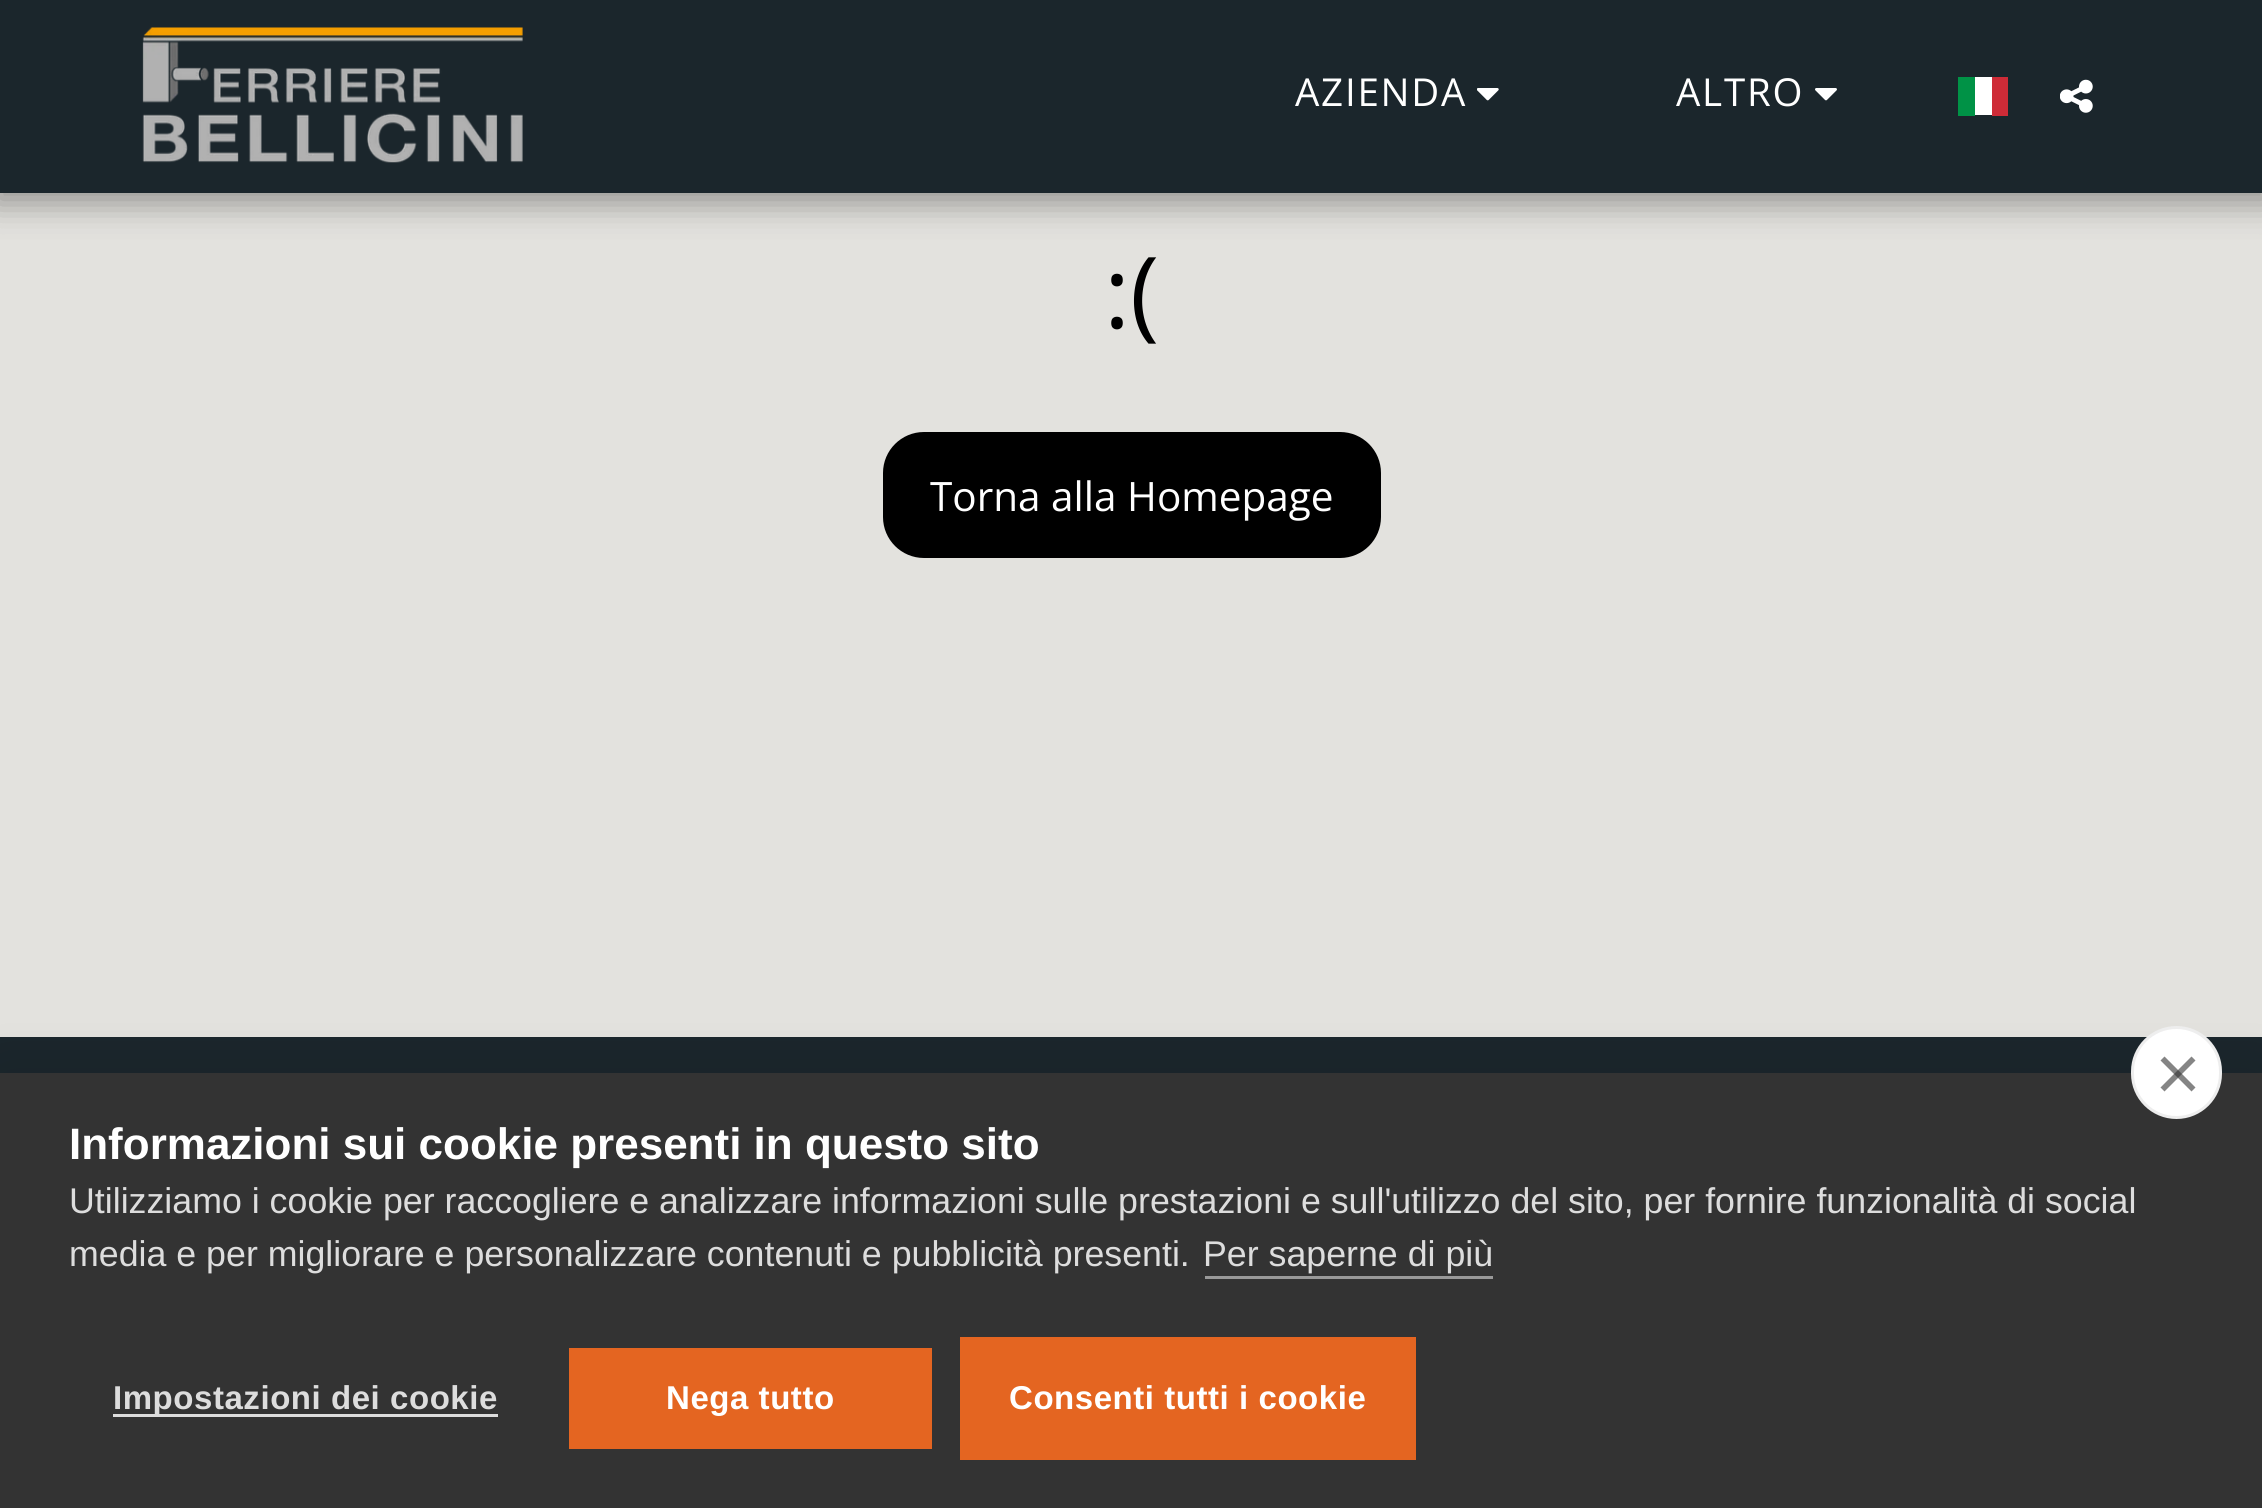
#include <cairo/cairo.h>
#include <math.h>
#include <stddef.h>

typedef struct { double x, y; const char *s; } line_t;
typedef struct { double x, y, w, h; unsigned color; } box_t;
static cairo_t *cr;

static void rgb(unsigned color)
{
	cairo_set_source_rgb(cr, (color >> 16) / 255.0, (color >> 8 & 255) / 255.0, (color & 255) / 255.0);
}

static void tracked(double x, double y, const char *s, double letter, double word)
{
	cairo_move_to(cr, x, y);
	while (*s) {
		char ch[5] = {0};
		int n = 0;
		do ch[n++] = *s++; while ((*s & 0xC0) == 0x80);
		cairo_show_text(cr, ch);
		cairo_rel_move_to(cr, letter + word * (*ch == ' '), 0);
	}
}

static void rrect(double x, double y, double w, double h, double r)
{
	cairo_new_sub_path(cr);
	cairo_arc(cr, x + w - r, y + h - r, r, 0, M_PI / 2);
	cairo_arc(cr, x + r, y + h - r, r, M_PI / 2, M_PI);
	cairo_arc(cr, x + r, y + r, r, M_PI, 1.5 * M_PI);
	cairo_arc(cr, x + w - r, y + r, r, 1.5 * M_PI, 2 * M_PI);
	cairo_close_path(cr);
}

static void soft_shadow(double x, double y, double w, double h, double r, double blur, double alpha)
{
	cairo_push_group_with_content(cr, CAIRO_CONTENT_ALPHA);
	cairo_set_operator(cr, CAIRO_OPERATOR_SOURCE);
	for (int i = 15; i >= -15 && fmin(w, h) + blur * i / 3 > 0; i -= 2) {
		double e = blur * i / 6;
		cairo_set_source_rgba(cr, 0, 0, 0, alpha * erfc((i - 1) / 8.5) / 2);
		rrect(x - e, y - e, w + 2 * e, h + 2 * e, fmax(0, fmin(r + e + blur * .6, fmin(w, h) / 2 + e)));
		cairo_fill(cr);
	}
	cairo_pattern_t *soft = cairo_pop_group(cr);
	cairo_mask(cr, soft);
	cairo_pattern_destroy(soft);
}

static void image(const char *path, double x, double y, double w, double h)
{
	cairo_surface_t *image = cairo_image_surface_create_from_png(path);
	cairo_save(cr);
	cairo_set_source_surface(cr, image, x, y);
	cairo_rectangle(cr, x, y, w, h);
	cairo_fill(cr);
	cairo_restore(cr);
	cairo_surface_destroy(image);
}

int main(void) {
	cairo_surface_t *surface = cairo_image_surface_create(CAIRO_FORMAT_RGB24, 2262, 1508);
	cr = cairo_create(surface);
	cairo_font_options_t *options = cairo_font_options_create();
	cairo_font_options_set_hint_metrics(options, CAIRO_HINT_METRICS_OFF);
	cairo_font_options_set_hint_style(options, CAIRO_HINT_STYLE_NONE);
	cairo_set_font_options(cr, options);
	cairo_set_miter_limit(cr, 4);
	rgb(0xe3e2de);
	cairo_paint(cr);
	rgb(0x000000);
	soft_shadow(-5, 0, 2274, 204, 0, 16.5, 0.35);
	rgb(0x1b262c);
	cairo_rectangle(cr, 0, 0, 2262, 193);
	cairo_fill(cr);
	image("img/1.png", 142, 27, 381, 136);
	image("img/2.png", 1477, 88, 22, 13);
	image("img/3.png", 1815, 88, 22, 13);
	{
		static const box_t items[] = {
			{1975, 77, 17, 38, 0xffffff},
			{1958, 77, 17, 39, 0x009246},
			{1992, 77, 16, 39, 0xce2b37},
		};
		for (size_t i = 0; i < sizeof items / sizeof *items; i++) {
			rgb(items[i].color);
			cairo_rectangle(cr, items[i].x, items[i].y, items[i].w, items[i].h);
			cairo_fill(cr);
		}
	}
	image("img/4.png", 2060, 79, 33, 34);
	rgb(0x000000);
	rrect(884.5, 433.5, 495, 123, 39.5);
	cairo_fill_preserve(cr);
	cairo_set_line_width(cr, 3);
	cairo_stroke(cr);
	rgb(0x1b262c);
	cairo_rectangle(cr, 0, 1037, 2262, 36);
	cairo_fill(cr);
	rgb(0x000000);
	soft_shadow(0, 1073, 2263, 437, 0, 27.5, 0.1);
	rgb(0x333333);
	cairo_rectangle(cr, 0, 1073, 2262, 435);
	cairo_fill(cr);
	rgb(0xffffff);
	rrect(2132.5, 1027.5, 88, 90, 44);
	cairo_fill_preserve(cr);
	rgb(0xeeeeee);
	cairo_stroke(cr);
	rgb(0x858585);
	cairo_new_path(cr);
	cairo_move_to(cr, 2160.5, 1087.5);
	cairo_line_to(cr, 2191.5, 1056.5);
	cairo_line_to(cr, 2195.5, 1060.5);
	cairo_line_to(cr, 2164.5, 1091.5);
	cairo_close_path(cr);
	cairo_fill(cr);
	cairo_set_source_rgba(cr, 0.2, 0.2, 0.2, 0.6);
	cairo_new_path(cr);
	cairo_move_to(cr, 2164.5, 1056.5);
	cairo_line_to(cr, 2195.5, 1087.5);
	cairo_line_to(cr, 2191.5, 1091.5);
	cairo_line_to(cr, 2160.5, 1060.5);
	cairo_close_path(cr);
	cairo_fill(cr);
	{
		static const box_t items[] = {
			{1205, 1276, 288, 3, 0x999999},
			{113, 1414, 385, 3, 0xdddddd},
			{569, 1348, 363, 101, 0xe46521},
			{960, 1337, 456, 123, 0xe46521},
		};
		for (size_t i = 0; i < sizeof items / sizeof *items; i++) {
			rgb(items[i].color);
			cairo_rectangle(cr, items[i].x, items[i].y, items[i].w, items[i].h);
			cairo_fill(cr);
		}
	}
	cairo_select_font_face(cr, "Open Sans", CAIRO_FONT_SLANT_NORMAL, CAIRO_FONT_WEIGHT_NORMAL);
	cairo_set_font_size(cr, 38.5);
	rgb(0xffffff);
	tracked(1295, 106, "AZIENDA", 1.75, 0);
	tracked(1676, 106, "ALTRO", 1.75, 0);
	cairo_set_font_size(cr, 99);
	rgb(0x000000);
	cairo_move_to(cr, 1104, 328);
	cairo_show_text(cr, ":(");
	cairo_set_font_size(cr, 40.5);
	rgb(0xffffff);
	cairo_move_to(cr, 930, 511);
	cairo_show_text(cr, "Torna alla Homepage");
	cairo_select_font_face(cr, "Liberation Sans", CAIRO_FONT_SLANT_NORMAL, CAIRO_FONT_WEIGHT_BOLD);
	cairo_set_font_size(cr, 44);
	cairo_move_to(cr, 69, 1159);
	cairo_show_text(cr, "Informazioni sui cookie presenti in questo sito");
	cairo_select_font_face(cr, "Liberation Sans", CAIRO_FONT_SLANT_NORMAL, CAIRO_FONT_WEIGHT_NORMAL);
	cairo_set_font_size(cr, 35.75);
	rgb(0xdddddd);
	{
		static const line_t items[] = {
			{69, 1213, "Utilizziamo i cookie per raccogliere e analizzare informazioni sulle prestazioni e sull'utilizzo del sito, per fornire funzionalità di social"},
			{69, 1266, "media e per migliorare e personalizzare contenuti e pubblicità presenti."},
			{1203, 1266, "Per saperne di più"},
		};
		for (size_t i = 0; i < sizeof items / sizeof *items; i++) {
			cairo_move_to(cr, items[i].x, items[i].y);
			cairo_show_text(cr, items[i].s);
		}
	}
	cairo_select_font_face(cr, "Liberation Sans", CAIRO_FONT_SLANT_NORMAL, CAIRO_FONT_WEIGHT_BOLD);
	cairo_set_font_size(cr, 33);
	tracked(113, 1409, "Impostazioni dei cookie", 0.55, 0);
	rgb(0xffffff);
	tracked(666, 1409, "Nega tutto", 0.55, 0);
	tracked(1009, 1409, "Consenti tutti i cookie", 0.55, 0);
	cairo_surface_write_to_png(surface, "page.png");
	cairo_font_options_destroy(options);
	cairo_destroy(cr);
	cairo_surface_destroy(surface);
	return 0;
}
